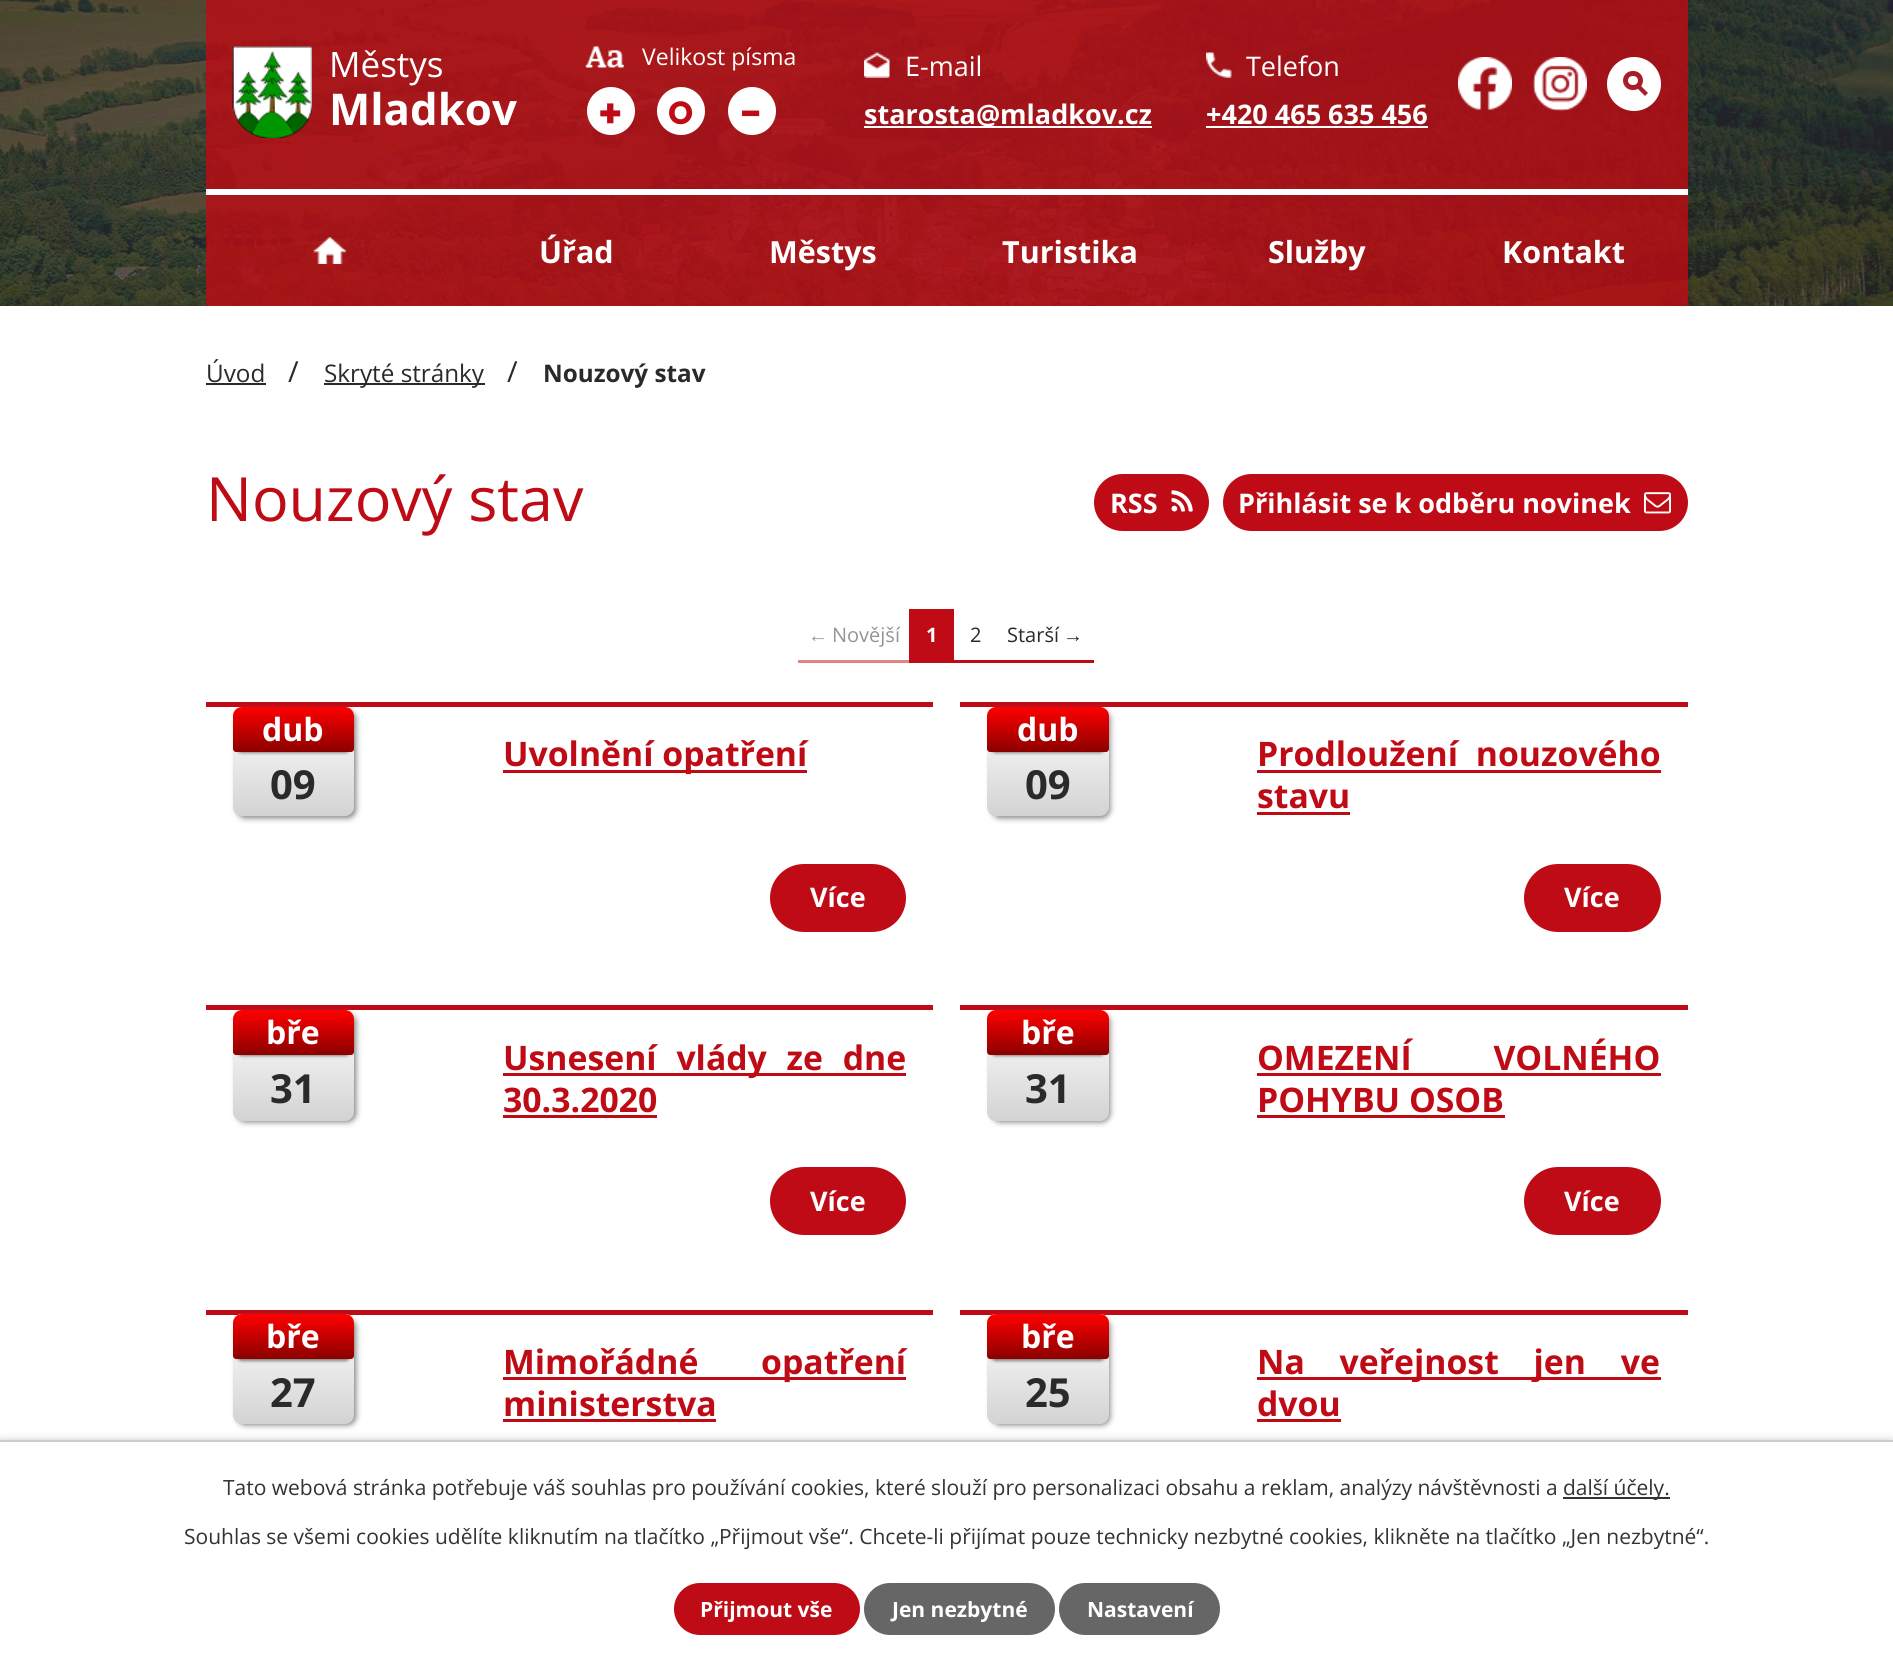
#include <cairo/cairo.h>
#include <math.h>
#include <stddef.h>

typedef struct { double x, y; const char *s; } line_t;
typedef struct { double x, y, w, h; unsigned color; } box_t;
static cairo_t *cr;

static void rgb(unsigned color)
{
	cairo_set_source_rgb(cr, (color >> 16) / 255.0, (color >> 8 & 255) / 255.0, (color & 255) / 255.0);
}

static void tracked(double x, double y, const char *s, double letter, double word)
{
	cairo_move_to(cr, x, y);
	while (*s) {
		char ch[5] = {0};
		int n = 0;
		do ch[n++] = *s++; while ((*s & 0xC0) == 0x80);
		cairo_show_text(cr, ch);
		cairo_rel_move_to(cr, letter + word * (*ch == ' '), 0);
	}
}

static void rrect(double x, double y, double w, double h, double r)
{
	cairo_new_sub_path(cr);
	cairo_arc(cr, x + w - r, y + h - r, r, 0, M_PI / 2);
	cairo_arc(cr, x + r, y + h - r, r, M_PI / 2, M_PI);
	cairo_arc(cr, x + r, y + r, r, M_PI, 1.5 * M_PI);
	cairo_arc(cr, x + w - r, y + r, r, 1.5 * M_PI, 2 * M_PI);
	cairo_close_path(cr);
}

static void soft_shadow(double x, double y, double w, double h, double r, double blur, double alpha)
{
	cairo_push_group_with_content(cr, CAIRO_CONTENT_ALPHA);
	cairo_set_operator(cr, CAIRO_OPERATOR_SOURCE);
	for (int i = 15; i >= -15 && fmin(w, h) + blur * i / 3 > 0; i -= 2) {
		double e = blur * i / 6;
		cairo_set_source_rgba(cr, 0, 0, 0, alpha * erfc((i - 1) / 8.5) / 2);
		rrect(x - e, y - e, w + 2 * e, h + 2 * e, fmax(0, fmin(r + e + blur * .6, fmin(w, h) / 2 + e)));
		cairo_fill(cr);
	}
	cairo_pattern_t *soft = cairo_pop_group(cr);
	cairo_mask(cr, soft);
	cairo_pattern_destroy(soft);
}

static void image(const char *path, double x, double y, double w, double h)
{
	cairo_surface_t *image = cairo_image_surface_create_from_png(path);
	cairo_save(cr);
	cairo_set_source_surface(cr, image, x, y);
	cairo_rectangle(cr, x, y, w, h);
	cairo_fill(cr);
	cairo_restore(cr);
	cairo_surface_destroy(image);
}

int main(void) {
	cairo_surface_t *surface = cairo_image_surface_create(CAIRO_FORMAT_RGB24, 1893, 1663);
	cr = cairo_create(surface);
	cairo_font_options_t *options = cairo_font_options_create();
	cairo_font_options_set_hint_metrics(options, CAIRO_HINT_METRICS_OFF);
	cairo_font_options_set_hint_style(options, CAIRO_HINT_STYLE_NONE);
	cairo_set_font_options(cr, options);
	cairo_set_miter_limit(cr, 4);
	cairo_pattern_t *gradient;
	rgb(0xffffff);
	cairo_paint(cr);
	image("img/1.png", 0, 0, 1893, 306);
	cairo_set_source_rgba(cr, 0.745, 0.043, 0.078, 0.8);
	cairo_rectangle(cr, 206, 0, 1482, 189);
	cairo_fill(cr);
	rgb(0xffffff);
	cairo_rectangle(cr, 206, 189, 1482, 6);
	cairo_fill(cr);
	image("img/2.png", 232, 46, 80, 92);
	image("img/3.png", 585, 46, 39, 22);
	cairo_arc(cr, 611, 111, 24, 0, 2 * M_PI);
	cairo_fill(cr);
	cairo_arc(cr, 681, 111, 24, 0, 2 * M_PI);
	cairo_fill(cr);
	cairo_arc(cr, 752, 111, 24, 0, 2 * M_PI);
	cairo_fill(cr);
	image("img/4.png", 864, 52, 26, 26);
	cairo_rectangle(cr, 864, 126, 288, 2);
	cairo_fill(cr);
	image("img/5.png", 1206, 52, 26, 26);
	cairo_rectangle(cr, 1206, 126, 222, 2);
	cairo_fill(cr);
	image("img/6.png", 1458, 57, 54, 53);
	image("img/7.png", 1533, 57, 54, 54);
	cairo_arc(cr, 1634, 84, 26, 0, 2 * M_PI);
	cairo_fill_preserve(cr);
	cairo_stroke(cr);
	rrect(1625.5, 73.5, 15, 14, 7);
	rgb(0xa71e29);
	cairo_set_line_width(cr, 5);
	cairo_stroke(cr);
	cairo_new_path(cr);
	cairo_move_to(cr, 1639.5, 84.5);
	cairo_line_to(cr, 1648, 93);
	cairo_line_to(cr, 1645, 96);
	cairo_line_to(cr, 1636.5, 87.5);
	cairo_close_path(cr);
	cairo_fill(cr);
	cairo_set_source_rgba(cr, 0.745, 0.043, 0.078, 0.8);
	cairo_rectangle(cr, 206, 195, 1482, 111);
	cairo_fill(cr);
	image("img/8.png", 313, 237, 34, 27);
	rgb(0x2a2a2a);
	cairo_rectangle(cr, 206, 383, 60, 2);
	cairo_fill(cr);
	cairo_rectangle(cr, 324, 383, 161, 2);
	cairo_fill(cr);
	rgb(0xbe0b15);
	rrect(1094, 474, 115, 57, 28.5);
	cairo_fill(cr);
	image("img/9.png", 1171, 490, 22, 22);
	rrect(1223, 474, 465, 57, 28.5);
	cairo_fill(cr);
	image("img/10.png", 1644, 492, 27, 22);
	{
		static const box_t items[] = {
			{798, 660, 113, 3, 0xdf858a},
			{909, 609, 45, 54, 0xbe0b15},
			{953, 660, 141, 3, 0xbe0b15},
			{206, 702, 727, 5, 0xbe0b15},
		};
		for (size_t i = 0; i < sizeof items / sizeof *items; i++) {
			rgb(items[i].color);
			cairo_rectangle(cr, items[i].x, items[i].y, items[i].w, items[i].h);
			cairo_fill(cr);
		}
	}
	rgb(0x808080);
	soft_shadow(237, 711, 119, 107, 8, 3, 1);
	gradient = cairo_pattern_create_linear(233, 707, 233, 816);
	cairo_pattern_add_color_stop_rgba(gradient, 0, 1, 1, 1, 1);
	cairo_pattern_add_color_stop_rgba(gradient, 1, 0.827, 0.827, 0.827, 1);
	cairo_set_source(cr, gradient);
	cairo_pattern_destroy(gradient);
	rrect(233, 707, 121, 109, 9);
	cairo_fill(cr);
	rgb(0x808080);
	soft_shadow(236, 714, 115, 39, 6, 1.5, 1);
	gradient = cairo_pattern_create_linear(233, 707, 233, 752);
	cairo_pattern_add_color_stop_rgba(gradient, 0, 1, 0, 0, 1);
	cairo_pattern_add_color_stop_rgba(gradient, 1, 0.545, 0, 0, 1);
	cairo_set_source(cr, gradient);
	cairo_pattern_destroy(gradient);
	cairo_new_path(cr);
	cairo_move_to(cr, 242, 707);
	cairo_line_to(cr, 345, 707);
	cairo_curve_to(cr, 350, 707, 354, 711, 354, 716);
	cairo_line_to(cr, 354, 749);
	cairo_curve_to(cr, 354, 750.5, 352.5, 752, 351, 752);
	cairo_line_to(cr, 236, 752);
	cairo_curve_to(cr, 234.5, 752, 233, 750.5, 233, 749);
	cairo_line_to(cr, 233, 716);
	cairo_curve_to(cr, 233, 711, 237, 707, 242, 707);
	cairo_close_path(cr);
	cairo_fill(cr);
	rgb(0xbe0b15);
	cairo_rectangle(cr, 503, 770, 304, 3);
	cairo_fill(cr);
	rrect(770, 864, 136, 68, 34);
	cairo_fill(cr);
	cairo_rectangle(cr, 960, 702, 728, 5);
	cairo_fill(cr);
	rgb(0x808080);
	soft_shadow(992, 711, 118, 107, 8, 3, 1);
	gradient = cairo_pattern_create_linear(987, 707, 987, 816);
	cairo_pattern_add_color_stop_rgba(gradient, 0, 1, 1, 1, 1);
	cairo_pattern_add_color_stop_rgba(gradient, 1, 0.827, 0.827, 0.827, 1);
	cairo_set_source(cr, gradient);
	cairo_pattern_destroy(gradient);
	rrect(987, 707, 122, 109, 9);
	cairo_fill(cr);
	rgb(0x808080);
	soft_shadow(990, 714, 116, 39, 6, 1.5, 1);
	gradient = cairo_pattern_create_linear(987, 707, 987, 752);
	cairo_pattern_add_color_stop_rgba(gradient, 0, 1, 0, 0, 1);
	cairo_pattern_add_color_stop_rgba(gradient, 1, 0.545, 0, 0, 1);
	cairo_set_source(cr, gradient);
	cairo_pattern_destroy(gradient);
	cairo_new_path(cr);
	cairo_move_to(cr, 996, 707);
	cairo_line_to(cr, 1100, 707);
	cairo_curve_to(cr, 1105, 707, 1109, 711, 1109, 716);
	cairo_line_to(cr, 1109, 749);
	cairo_curve_to(cr, 1109, 750.5, 1107.5, 752, 1106, 752);
	cairo_line_to(cr, 990, 752);
	cairo_curve_to(cr, 988.5, 752, 987, 750.5, 987, 749);
	cairo_line_to(cr, 987, 716);
	cairo_curve_to(cr, 987, 711, 991, 707, 996, 707);
	cairo_close_path(cr);
	cairo_fill(cr);
	rgb(0xbe0b15);
	cairo_rectangle(cr, 1257, 770, 404, 3);
	cairo_fill(cr);
	cairo_rectangle(cr, 1257, 812, 93, 3);
	cairo_fill(cr);
	rrect(1524, 864, 137, 68, 34);
	cairo_fill(cr);
	cairo_rectangle(cr, 206, 1005, 727, 5);
	cairo_fill(cr);
	rgb(0x808080);
	soft_shadow(237, 1014, 119, 108, 8, 3, 1);
	gradient = cairo_pattern_create_linear(233, 1010, 233, 1121);
	cairo_pattern_add_color_stop_rgba(gradient, 0, 1, 1, 1, 1);
	cairo_pattern_add_color_stop_rgba(gradient, 1, 0.827, 0.827, 0.827, 1);
	cairo_set_source(cr, gradient);
	cairo_pattern_destroy(gradient);
	rrect(233, 1010, 121, 111, 9);
	cairo_fill(cr);
	rgb(0x808080);
	soft_shadow(236, 1017, 115, 39, 6, 1.5, 1);
	gradient = cairo_pattern_create_linear(233, 1010, 233, 1055);
	cairo_pattern_add_color_stop_rgba(gradient, 0, 1, 0, 0, 1);
	cairo_pattern_add_color_stop_rgba(gradient, 1, 0.545, 0, 0, 1);
	cairo_set_source(cr, gradient);
	cairo_pattern_destroy(gradient);
	cairo_new_path(cr);
	cairo_move_to(cr, 242, 1010);
	cairo_line_to(cr, 345, 1010);
	cairo_curve_to(cr, 350, 1010, 354, 1014, 354, 1019);
	cairo_line_to(cr, 354, 1052);
	cairo_curve_to(cr, 354, 1053.5, 352.5, 1055, 351, 1055);
	cairo_line_to(cr, 236, 1055);
	cairo_curve_to(cr, 234.5, 1055, 233, 1053.5, 233, 1052);
	cairo_line_to(cr, 233, 1019);
	cairo_curve_to(cr, 233, 1014, 237, 1010, 242, 1010);
	cairo_close_path(cr);
	cairo_fill(cr);
	rgb(0xbe0b15);
	cairo_rectangle(cr, 503, 1073, 403, 3);
	cairo_fill(cr);
	cairo_rectangle(cr, 503, 1115, 154, 3);
	cairo_fill(cr);
	rrect(770, 1167, 136, 68, 34);
	cairo_fill(cr);
	cairo_rectangle(cr, 960, 1005, 728, 5);
	cairo_fill(cr);
	rgb(0x808080);
	soft_shadow(992, 1014, 118, 108, 8, 3, 1);
	gradient = cairo_pattern_create_linear(987, 1010, 987, 1121);
	cairo_pattern_add_color_stop_rgba(gradient, 0, 1, 1, 1, 1);
	cairo_pattern_add_color_stop_rgba(gradient, 1, 0.827, 0.827, 0.827, 1);
	cairo_set_source(cr, gradient);
	cairo_pattern_destroy(gradient);
	rrect(987, 1010, 122, 111, 9);
	cairo_fill(cr);
	rgb(0x808080);
	soft_shadow(990, 1017, 116, 39, 6, 1.5, 1);
	gradient = cairo_pattern_create_linear(987, 1010, 987, 1055);
	cairo_pattern_add_color_stop_rgba(gradient, 0, 1, 0, 0, 1);
	cairo_pattern_add_color_stop_rgba(gradient, 1, 0.545, 0, 0, 1);
	cairo_set_source(cr, gradient);
	cairo_pattern_destroy(gradient);
	cairo_new_path(cr);
	cairo_move_to(cr, 996, 1010);
	cairo_line_to(cr, 1100, 1010);
	cairo_curve_to(cr, 1105, 1010, 1109, 1014, 1109, 1019);
	cairo_line_to(cr, 1109, 1052);
	cairo_curve_to(cr, 1109, 1053.5, 1107.5, 1055, 1106, 1055);
	cairo_line_to(cr, 990, 1055);
	cairo_curve_to(cr, 988.5, 1055, 987, 1053.5, 987, 1052);
	cairo_line_to(cr, 987, 1019);
	cairo_curve_to(cr, 987, 1014, 991, 1010, 996, 1010);
	cairo_close_path(cr);
	cairo_fill(cr);
	rgb(0xbe0b15);
	cairo_rectangle(cr, 1257, 1073, 404, 3);
	cairo_fill(cr);
	cairo_rectangle(cr, 1257, 1115, 248, 3);
	cairo_fill(cr);
	rrect(1524, 1167, 137, 68, 34);
	cairo_fill(cr);
	cairo_rectangle(cr, 206, 1310, 727, 5);
	cairo_fill(cr);
	rgb(0x808080);
	soft_shadow(237, 1319, 119, 106, 8, 3, 1);
	gradient = cairo_pattern_create_linear(233, 1314, 233, 1424);
	cairo_pattern_add_color_stop_rgba(gradient, 0, 1, 1, 1, 1);
	cairo_pattern_add_color_stop_rgba(gradient, 1, 0.827, 0.827, 0.827, 1);
	cairo_set_source(cr, gradient);
	cairo_pattern_destroy(gradient);
	rrect(233, 1314, 121, 110, 9);
	cairo_fill(cr);
	rgb(0x808080);
	soft_shadow(236, 1322, 115, 39, 6, 1.5, 1);
	gradient = cairo_pattern_create_linear(233, 1314, 233, 1359);
	cairo_pattern_add_color_stop_rgba(gradient, 0, 1, 0, 0, 1);
	cairo_pattern_add_color_stop_rgba(gradient, 1, 0.545, 0, 0, 1);
	cairo_set_source(cr, gradient);
	cairo_pattern_destroy(gradient);
	cairo_new_path(cr);
	cairo_move_to(cr, 242, 1314);
	cairo_line_to(cr, 345, 1314);
	cairo_curve_to(cr, 350, 1314, 354, 1318, 354, 1323);
	cairo_line_to(cr, 354, 1356);
	cairo_curve_to(cr, 354, 1357.5, 352.5, 1359, 351, 1359);
	cairo_line_to(cr, 236, 1359);
	cairo_curve_to(cr, 234.5, 1359, 233, 1357.5, 233, 1356);
	cairo_line_to(cr, 233, 1323);
	cairo_curve_to(cr, 233, 1318, 237, 1314, 242, 1314);
	cairo_close_path(cr);
	cairo_fill(cr);
	{
		static const box_t items[] = {
			{503, 1377, 403, 3, 0xbe0b15},
			{503, 1419, 213, 3, 0xbe0b15},
			{960, 1310, 728, 5, 0xbe0b15},
		};
		for (size_t i = 0; i < sizeof items / sizeof *items; i++) {
			rgb(items[i].color);
			cairo_rectangle(cr, items[i].x, items[i].y, items[i].w, items[i].h);
			cairo_fill(cr);
		}
	}
	rgb(0x808080);
	soft_shadow(992, 1319, 118, 106, 8, 3, 1);
	gradient = cairo_pattern_create_linear(987, 1314, 987, 1424);
	cairo_pattern_add_color_stop_rgba(gradient, 0, 1, 1, 1, 1);
	cairo_pattern_add_color_stop_rgba(gradient, 1, 0.827, 0.827, 0.827, 1);
	cairo_set_source(cr, gradient);
	cairo_pattern_destroy(gradient);
	rrect(987, 1314, 122, 110, 9);
	cairo_fill(cr);
	rgb(0x808080);
	soft_shadow(990, 1322, 116, 39, 6, 1.5, 1);
	gradient = cairo_pattern_create_linear(987, 1314, 987, 1359);
	cairo_pattern_add_color_stop_rgba(gradient, 0, 1, 0, 0, 1);
	cairo_pattern_add_color_stop_rgba(gradient, 1, 0.545, 0, 0, 1);
	cairo_set_source(cr, gradient);
	cairo_pattern_destroy(gradient);
	cairo_new_path(cr);
	cairo_move_to(cr, 996, 1314);
	cairo_line_to(cr, 1100, 1314);
	cairo_curve_to(cr, 1105, 1314, 1109, 1318, 1109, 1323);
	cairo_line_to(cr, 1109, 1356);
	cairo_curve_to(cr, 1109, 1357.5, 1107.5, 1359, 1106, 1359);
	cairo_line_to(cr, 990, 1359);
	cairo_curve_to(cr, 988.5, 1359, 987, 1357.5, 987, 1356);
	cairo_line_to(cr, 987, 1323);
	cairo_curve_to(cr, 987, 1318, 991, 1314, 996, 1314);
	cairo_close_path(cr);
	cairo_fill(cr);
	rgb(0xbe0b15);
	cairo_rectangle(cr, 1257, 1377, 404, 3);
	cairo_fill(cr);
	cairo_rectangle(cr, 1257, 1419, 84, 3);
	cairo_fill(cr);
	rgb(0x000000);
	soft_shadow(0, 1440, 1893, 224, 0, 4, 0.2);
	{
		static const box_t items[] = {
			{0, 1442, 1893, 221, 0xffffff},
			{0, 1440, 1893, 2, 0xcccccc},
			{1563, 1497, 107, 2, 0x333333},
		};
		for (size_t i = 0; i < sizeof items / sizeof *items; i++) {
			rgb(items[i].color);
			cairo_rectangle(cr, items[i].x, items[i].y, items[i].w, items[i].h);
			cairo_fill(cr);
		}
	}
	rgb(0xbe0b15);
	rrect(674, 1583, 186, 52, 26);
	cairo_fill(cr);
	rgb(0x666666);
	rrect(864, 1583, 191, 52, 26);
	cairo_fill(cr);
	rrect(1059, 1583, 161, 52, 26);
	cairo_fill(cr);
	cairo_select_font_face(cr, "Open Sans", CAIRO_FONT_SLANT_NORMAL, CAIRO_FONT_WEIGHT_NORMAL);
	cairo_set_font_size(cr, 35);
	rgb(0xffffff);
	cairo_move_to(cr, 329, 77);
	cairo_show_text(cr, "Městys");
	cairo_select_font_face(cr, "Open Sans", CAIRO_FONT_SLANT_NORMAL, CAIRO_FONT_WEIGHT_BOLD);
	cairo_set_font_size(cr, 43.75);
	cairo_move_to(cr, 329, 125);
	cairo_show_text(cr, "Mladkov");
	cairo_select_font_face(cr, "Open Sans", CAIRO_FONT_SLANT_NORMAL, CAIRO_FONT_WEIGHT_NORMAL);
	cairo_set_font_size(cr, 23);
	cairo_move_to(cr, 642, 65);
	cairo_show_text(cr, "Velikost písma");
	cairo_select_font_face(cr, "Poppins", CAIRO_FONT_SLANT_NORMAL, CAIRO_FONT_WEIGHT_BOLD);
	cairo_set_font_size(cr, 39);
	rgb(0xbe0b15);
	cairo_move_to(cr, 598, 127);
	cairo_show_text(cr, "+");
	cairo_set_font_size(cr, 32);
	cairo_move_to(cr, 668, 124);
	cairo_show_text(cr, "O");
	cairo_set_font_size(cr, 39);
	cairo_move_to(cr, 740, 127);
	cairo_show_text(cr, "-");
	cairo_select_font_face(cr, "Open Sans", CAIRO_FONT_SLANT_NORMAL, CAIRO_FONT_WEIGHT_NORMAL);
	cairo_set_font_size(cr, 27);
	rgb(0xffffff);
	cairo_move_to(cr, 905, 76);
	cairo_show_text(cr, "E-mail");
	cairo_select_font_face(cr, "Open Sans", CAIRO_FONT_SLANT_NORMAL, CAIRO_FONT_WEIGHT_BOLD);
	cairo_move_to(cr, 864, 124);
	cairo_show_text(cr, "starosta@mladkov.cz");
	cairo_select_font_face(cr, "Open Sans", CAIRO_FONT_SLANT_NORMAL, CAIRO_FONT_WEIGHT_NORMAL);
	cairo_move_to(cr, 1246, 76);
	cairo_show_text(cr, "Telefon");
	cairo_select_font_face(cr, "Open Sans", CAIRO_FONT_SLANT_NORMAL, CAIRO_FONT_WEIGHT_BOLD);
	cairo_move_to(cr, 1206, 124);
	cairo_show_text(cr, "+420 465 635 456");
	cairo_set_font_size(cr, 30.5);
	{
		static const line_t items[] = {
			{539, 263, "Úřad"},
			{769, 263, "Městys"},
			{1002, 263, "Turistika"},
			{1268, 263, "Služby"},
			{1502, 263, "Kontakt"},
		};
		for (size_t i = 0; i < sizeof items / sizeof *items; i++) {
			cairo_move_to(cr, items[i].x, items[i].y);
			cairo_show_text(cr, items[i].s);
		}
	}
	cairo_select_font_face(cr, "Open Sans", CAIRO_FONT_SLANT_NORMAL, CAIRO_FONT_WEIGHT_NORMAL);
	cairo_set_font_size(cr, 24.25);
	rgb(0x2a2a2a);
	cairo_move_to(cr, 206, 382);
	cairo_show_text(cr, "Úvod");
	cairo_set_font_size(cr, 29);
	cairo_move_to(cr, 288, 382);
	cairo_show_text(cr, "/");
	cairo_set_font_size(cr, 24.25);
	cairo_move_to(cr, 324, 382);
	cairo_show_text(cr, "Skryté stránky");
	cairo_set_font_size(cr, 29);
	cairo_move_to(cr, 507, 382);
	cairo_show_text(cr, "/");
	cairo_select_font_face(cr, "Open Sans", CAIRO_FONT_SLANT_NORMAL, CAIRO_FONT_WEIGHT_BOLD);
	cairo_set_font_size(cr, 24.25);
	cairo_move_to(cr, 543, 382);
	cairo_show_text(cr, "Nouzový stav");
	cairo_select_font_face(cr, "Open Sans", CAIRO_FONT_SLANT_NORMAL, CAIRO_FONT_WEIGHT_NORMAL);
	cairo_set_font_size(cr, 61);
	rgb(0xbe0b15);
	cairo_move_to(cr, 206, 521);
	cairo_show_text(cr, "Nouzový stav");
	cairo_select_font_face(cr, "Open Sans", CAIRO_FONT_SLANT_NORMAL, CAIRO_FONT_WEIGHT_BOLD);
	cairo_set_font_size(cr, 27);
	rgb(0xffffff);
	cairo_move_to(cr, 1110, 513);
	cairo_show_text(cr, "RSS");
	cairo_move_to(cr, 1238, 513);
	cairo_show_text(cr, "Přihlásit se k odběru novinek");
	cairo_select_font_face(cr, "Liberation Sans", CAIRO_FONT_SLANT_NORMAL, CAIRO_FONT_WEIGHT_NORMAL);
	cairo_set_font_size(cr, 20);
	rgb(0x959595);
	cairo_move_to(cr, 808, 642);
	cairo_show_text(cr, "←");
	cairo_select_font_face(cr, "Open Sans", CAIRO_FONT_SLANT_NORMAL, CAIRO_FONT_WEIGHT_NORMAL);
	cairo_move_to(cr, 832, 642);
	cairo_show_text(cr, "Novější");
	cairo_select_font_face(cr, "Open Sans", CAIRO_FONT_SLANT_NORMAL, CAIRO_FONT_WEIGHT_BOLD);
	rgb(0xffffff);
	cairo_move_to(cr, 926, 642);
	cairo_show_text(cr, "1");
	cairo_select_font_face(cr, "Open Sans", CAIRO_FONT_SLANT_NORMAL, CAIRO_FONT_WEIGHT_NORMAL);
	rgb(0x2a2a2a);
	cairo_move_to(cr, 970, 642);
	cairo_show_text(cr, "2");
	cairo_move_to(cr, 1007, 642);
	cairo_show_text(cr, "Starší");
	cairo_select_font_face(cr, "Liberation Sans", CAIRO_FONT_SLANT_NORMAL, CAIRO_FONT_WEIGHT_NORMAL);
	cairo_move_to(cr, 1063, 642);
	cairo_show_text(cr, "→");
	cairo_select_font_face(cr, "Open Sans", CAIRO_FONT_SLANT_NORMAL, CAIRO_FONT_WEIGHT_BOLD);
	cairo_set_font_size(cr, 32);
	rgb(0xffffff);
	cairo_move_to(cr, 262, 741);
	cairo_show_text(cr, "dub");
	cairo_set_font_size(cr, 40);
	rgb(0x2a2a2a);
	cairo_move_to(cr, 270, 799);
	cairo_show_text(cr, "09");
	cairo_set_font_size(cr, 33.75);
	rgb(0xbe0b15);
	cairo_move_to(cr, 503, 766);
	cairo_show_text(cr, "Uvolnění opatření");
	cairo_set_font_size(cr, 27);
	rgb(0xffffff);
	cairo_move_to(cr, 810, 907);
	cairo_show_text(cr, "Více");
	cairo_set_font_size(cr, 32);
	cairo_move_to(cr, 1017, 741);
	cairo_show_text(cr, "dub");
	cairo_set_font_size(cr, 40);
	rgb(0x2a2a2a);
	cairo_move_to(cr, 1025, 799);
	cairo_show_text(cr, "09");
	cairo_set_font_size(cr, 33.75);
	rgb(0xbe0b15);
	tracked(1257, 766, "Prodloužení nouzového", 0, 9);
	cairo_move_to(cr, 1257, 808);
	cairo_show_text(cr, "stavu");
	cairo_set_font_size(cr, 27);
	rgb(0xffffff);
	cairo_move_to(cr, 1564, 907);
	cairo_show_text(cr, "Více");
	cairo_set_font_size(cr, 32);
	cairo_move_to(cr, 266, 1044);
	cairo_show_text(cr, "bře");
	cairo_set_font_size(cr, 40);
	rgb(0x2a2a2a);
	cairo_move_to(cr, 270, 1103);
	cairo_show_text(cr, "31");
	cairo_set_font_size(cr, 33.75);
	rgb(0xbe0b15);
	tracked(503, 1070, "Usnesení vlády ze dne", 0, 11);
	cairo_move_to(cr, 503, 1112);
	cairo_show_text(cr, "30.3.2020");
	cairo_set_font_size(cr, 27);
	rgb(0xffffff);
	cairo_move_to(cr, 810, 1211);
	cairo_show_text(cr, "Více");
	cairo_set_font_size(cr, 32);
	cairo_move_to(cr, 1021, 1044);
	cairo_show_text(cr, "bře");
	cairo_set_font_size(cr, 40);
	rgb(0x2a2a2a);
	cairo_move_to(cr, 1025, 1103);
	cairo_show_text(cr, "31");
	cairo_set_font_size(cr, 33.75);
	rgb(0xbe0b15);
	tracked(1257, 1070, "OMEZENÍ VOLNÉHO", 0, 73);
	cairo_move_to(cr, 1257, 1112);
	cairo_show_text(cr, "POHYBU OSOB");
	cairo_set_font_size(cr, 27);
	rgb(0xffffff);
	cairo_move_to(cr, 1564, 1211);
	cairo_show_text(cr, "Více");
	cairo_set_font_size(cr, 32);
	cairo_move_to(cr, 266, 1348);
	cairo_show_text(cr, "bře");
	cairo_set_font_size(cr, 40);
	rgb(0x2a2a2a);
	cairo_move_to(cr, 270, 1407);
	cairo_show_text(cr, "27");
	cairo_set_font_size(cr, 33.75);
	rgb(0xbe0b15);
	tracked(503, 1374, "Mimořádné opatření", 0, 54);
	cairo_move_to(cr, 503, 1416);
	cairo_show_text(cr, "ministerstva");
	cairo_set_font_size(cr, 32);
	rgb(0xffffff);
	cairo_move_to(cr, 1021, 1348);
	cairo_show_text(cr, "bře");
	cairo_set_font_size(cr, 40);
	rgb(0x2a2a2a);
	cairo_move_to(cr, 1025, 1407);
	cairo_show_text(cr, "25");
	cairo_set_font_size(cr, 33.75);
	rgb(0xbe0b15);
	tracked(1257, 1374, "Na veřejnost jen ve", 0, 26);
	cairo_move_to(cr, 1257, 1416);
	cairo_show_text(cr, "dvou");
	cairo_select_font_face(cr, "Open Sans", CAIRO_FONT_SLANT_NORMAL, CAIRO_FONT_WEIGHT_NORMAL);
	cairo_set_font_size(cr, 21);
	rgb(0x333333);
	{
		static const line_t items[] = {
			{223, 1495, "Tato webová stránka potřebuje váš souhlas pro používání cookies, které slouží pro personalizaci obsahu a reklam, analýzy návštěvnosti a"},
			{1563, 1495, "další účely."},
			{184, 1544, "Souhlas se všemi cookies udělíte kliknutím na tlačítko „Přijmout vše“. Chcete-li přijímat pouze technicky nezbytné cookies, klikněte na tlačítko „Jen nezbytné“."},
		};
		for (size_t i = 0; i < sizeof items / sizeof *items; i++) {
			cairo_move_to(cr, items[i].x, items[i].y);
			cairo_show_text(cr, items[i].s);
		}
	}
	cairo_select_font_face(cr, "Open Sans", CAIRO_FONT_SLANT_NORMAL, CAIRO_FONT_WEIGHT_BOLD);
	rgb(0xffffff);
	{
		static const line_t items[] = {
			{700, 1617, "Přijmout vše"},
			{892, 1617, "Jen nezbytné"},
			{1087, 1617, "Nastavení"},
		};
		for (size_t i = 0; i < sizeof items / sizeof *items; i++) {
			cairo_move_to(cr, items[i].x, items[i].y);
			cairo_show_text(cr, items[i].s);
		}
	}
	cairo_surface_write_to_png(surface, "page.png");
	cairo_font_options_destroy(options);
	cairo_destroy(cr);
	cairo_surface_destroy(surface);
	return 0;
}
